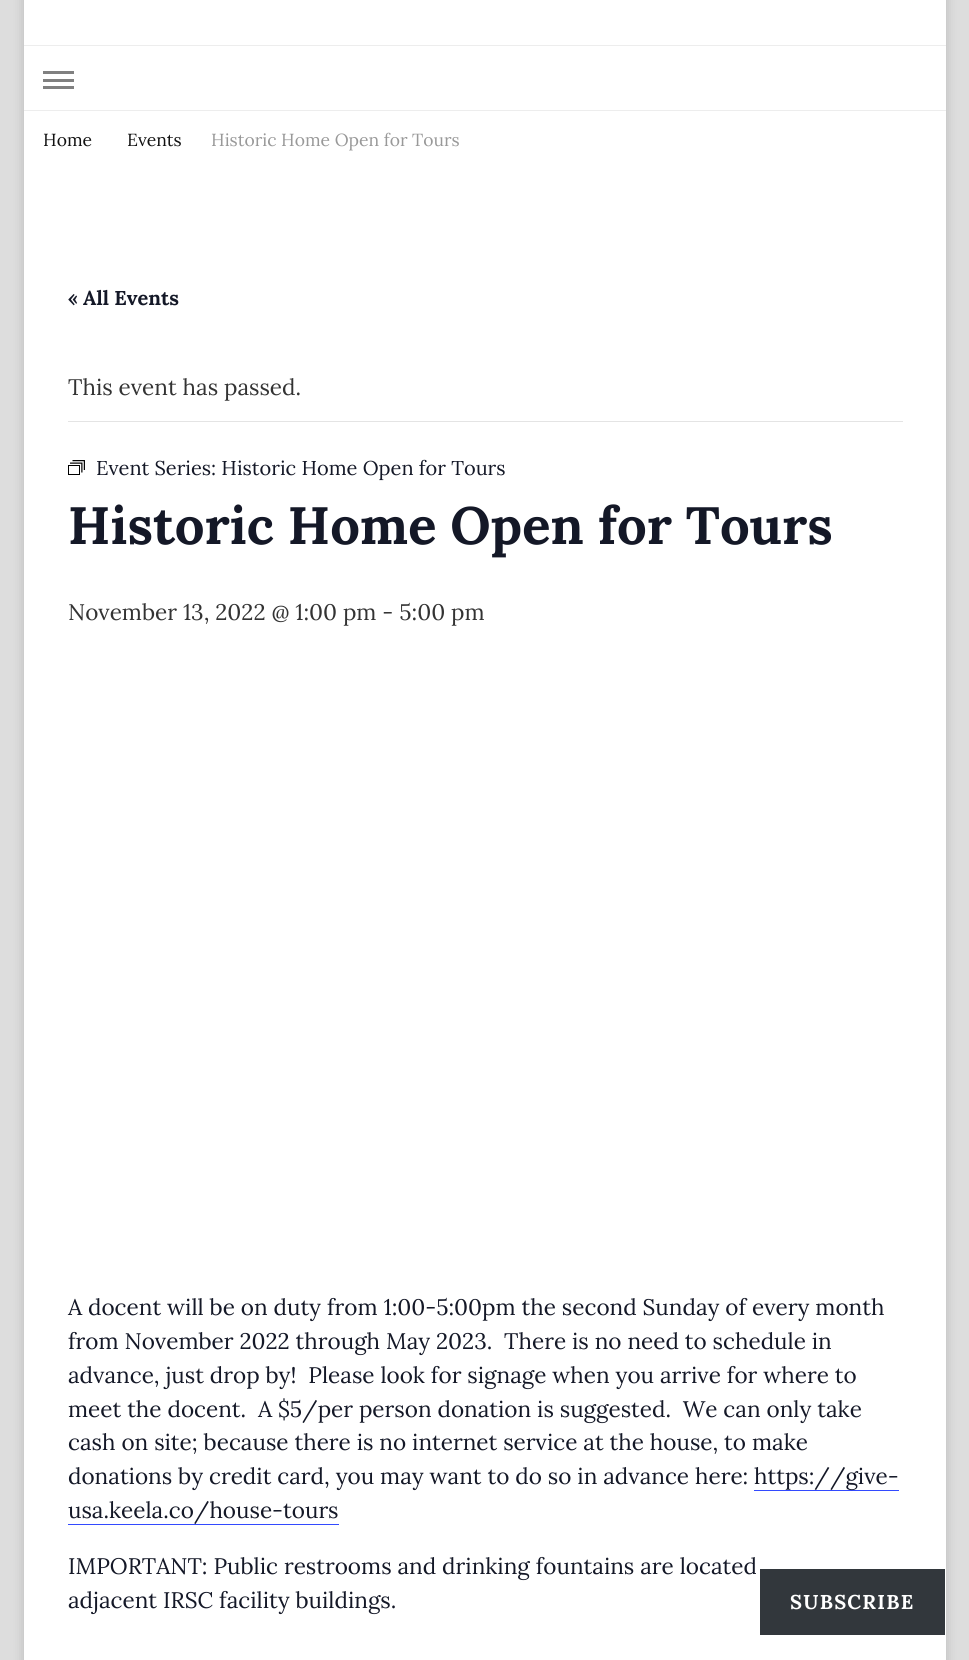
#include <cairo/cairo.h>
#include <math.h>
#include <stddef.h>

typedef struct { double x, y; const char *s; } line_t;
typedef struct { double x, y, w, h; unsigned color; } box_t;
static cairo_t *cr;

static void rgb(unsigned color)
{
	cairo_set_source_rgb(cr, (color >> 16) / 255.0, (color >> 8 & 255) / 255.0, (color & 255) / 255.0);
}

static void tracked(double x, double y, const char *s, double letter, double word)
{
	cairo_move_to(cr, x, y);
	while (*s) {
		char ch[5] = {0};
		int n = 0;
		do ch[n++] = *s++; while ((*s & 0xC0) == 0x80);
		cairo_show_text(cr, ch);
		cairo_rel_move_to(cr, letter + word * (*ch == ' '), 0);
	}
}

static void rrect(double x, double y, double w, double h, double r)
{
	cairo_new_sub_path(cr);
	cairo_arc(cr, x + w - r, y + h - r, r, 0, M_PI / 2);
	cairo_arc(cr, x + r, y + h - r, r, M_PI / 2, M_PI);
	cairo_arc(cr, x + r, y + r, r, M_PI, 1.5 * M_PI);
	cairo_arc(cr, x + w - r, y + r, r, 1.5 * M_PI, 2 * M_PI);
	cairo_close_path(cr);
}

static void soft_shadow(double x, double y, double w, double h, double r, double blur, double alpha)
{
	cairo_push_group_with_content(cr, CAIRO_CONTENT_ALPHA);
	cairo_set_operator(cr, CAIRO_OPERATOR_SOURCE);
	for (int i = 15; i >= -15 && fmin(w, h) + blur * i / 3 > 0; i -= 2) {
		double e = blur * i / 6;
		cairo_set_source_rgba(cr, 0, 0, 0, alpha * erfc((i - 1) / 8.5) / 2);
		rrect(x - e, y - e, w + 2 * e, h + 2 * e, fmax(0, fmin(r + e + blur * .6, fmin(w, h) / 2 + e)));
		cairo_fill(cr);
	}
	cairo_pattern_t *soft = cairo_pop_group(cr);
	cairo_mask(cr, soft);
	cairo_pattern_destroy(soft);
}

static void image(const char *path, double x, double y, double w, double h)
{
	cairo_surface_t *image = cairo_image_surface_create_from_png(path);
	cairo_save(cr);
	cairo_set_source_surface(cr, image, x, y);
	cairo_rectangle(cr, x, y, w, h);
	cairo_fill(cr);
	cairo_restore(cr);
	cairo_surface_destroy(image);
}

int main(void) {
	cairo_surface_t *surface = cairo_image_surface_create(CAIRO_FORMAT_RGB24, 969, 1660);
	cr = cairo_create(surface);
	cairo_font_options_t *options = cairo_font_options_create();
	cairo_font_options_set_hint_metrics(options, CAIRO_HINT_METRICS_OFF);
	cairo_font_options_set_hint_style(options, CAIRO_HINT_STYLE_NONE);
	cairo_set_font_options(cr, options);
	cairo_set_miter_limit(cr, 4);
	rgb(0xdddddd);
	cairo_paint(cr);
	rgb(0x000000);
	soft_shadow(24, -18, 922, 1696, 0, 6, 0.16);
	{
		static const box_t items[] = {
			{24, 0, 922, 1660, 0xffffff},
			{24, 45, 922, 1, 0xededed},
			{24, 110, 922, 1, 0xededed},
			{43, 71, 31, 3, 0x808080},
			{43, 79, 31, 3, 0x808080},
			{43, 86, 31, 3, 0x808080},
			{68, 421, 835, 1, 0xe4e4e4},
		};
		for (size_t i = 0; i < sizeof items / sizeof *items; i++) {
			rgb(items[i].color);
			cairo_rectangle(cr, items[i].x, items[i].y, items[i].w, items[i].h);
			cairo_fill(cr);
		}
	}
	image("img/1.png", 68, 460, 17, 15);
	{
		static const box_t items[] = {
			{754, 1490, 145, 1, 0x334aff},
			{68, 1524, 271, 1, 0x334aff},
			{760, 1569, 185, 66, 0x32373c},
		};
		for (size_t i = 0; i < sizeof items / sizeof *items; i++) {
			rgb(items[i].color);
			cairo_rectangle(cr, items[i].x, items[i].y, items[i].w, items[i].h);
			cairo_fill(cr);
		}
	}
	cairo_select_font_face(cr, "Lora", CAIRO_FONT_SLANT_NORMAL, CAIRO_FONT_WEIGHT_NORMAL);
	cairo_set_font_size(cr, 17.5);
	rgb(0x121212);
	cairo_move_to(cr, 43, 146);
	cairo_show_text(cr, "Home");
	cairo_move_to(cr, 127, 146);
	cairo_show_text(cr, "Events");
	rgb(0x999999);
	cairo_move_to(cr, 211, 146);
	cairo_show_text(cr, "Historic Home Open for Tours");
	cairo_select_font_face(cr, "Lora", CAIRO_FONT_SLANT_NORMAL, CAIRO_FONT_WEIGHT_BOLD);
	cairo_set_font_size(cr, 20);
	rgb(0x141827);
	cairo_move_to(cr, 68, 305);
	cairo_show_text(cr, "« All Events");
	cairo_select_font_face(cr, "Lora", CAIRO_FONT_SLANT_NORMAL, CAIRO_FONT_WEIGHT_NORMAL);
	cairo_set_font_size(cr, 22.5);
	rgb(0x333333);
	cairo_move_to(cr, 68, 395);
	cairo_show_text(cr, "This event has passed.");
	cairo_set_font_size(cr, 20);
	rgb(0x141827);
	cairo_move_to(cr, 96, 475);
	cairo_show_text(cr, "Event Series: Historic Home Open for Tours");
	cairo_select_font_face(cr, "Lora", CAIRO_FONT_SLANT_NORMAL, CAIRO_FONT_WEIGHT_BOLD);
	cairo_set_font_size(cr, 52.5);
	cairo_move_to(cr, 68, 544);
	cairo_show_text(cr, "Historic Home Open for Tours");
	cairo_select_font_face(cr, "Lora", CAIRO_FONT_SLANT_NORMAL, CAIRO_FONT_WEIGHT_NORMAL);
	cairo_set_font_size(cr, 22.5);
	rgb(0x333333);
	cairo_move_to(cr, 68, 620);
	cairo_show_text(cr, "November 13, 2022 @ 1:00 pm - 5:00 pm");
	rgb(0x141827);
	{
		static const line_t items[] = {
			{68, 1315, "A docent will be on duty from 1:00-5:00pm the second Sunday of every month"},
			{68, 1349, "from November 2022 through May 2023.  There is no need to schedule in"},
			{68, 1383, "advance, just drop by!  Please look for signage when you arrive for where to"},
			{68, 1417, "meet the docent.  A $5/per person donation is suggested.  We can only take"},
			{68, 1450, "cash on site; because there is no internet service at the house, to make"},
			{68, 1484, "donations by credit card, you may want to do so in advance here:"},
			{754, 1484, "https://give-"},
			{68, 1518, "usa.keela.co/house-tours"},
			{68, 1574, "IMPORTANT: Public restrooms and drinking fountains are located"},
			{68, 1608, "adjacent IRSC facility buildings."},
		};
		for (size_t i = 0; i < sizeof items / sizeof *items; i++) {
			cairo_move_to(cr, items[i].x, items[i].y);
			cairo_show_text(cr, items[i].s);
		}
	}
	cairo_select_font_face(cr, "Lora", CAIRO_FONT_SLANT_NORMAL, CAIRO_FONT_WEIGHT_BOLD);
	cairo_set_font_size(cr, 20);
	rgb(0xffffff);
	tracked(790, 1609, "SUBSCRIBE", 1.25, 0);
	cairo_surface_write_to_png(surface, "page.png");
	cairo_font_options_destroy(options);
	cairo_destroy(cr);
	cairo_surface_destroy(surface);
	return 0;
}
